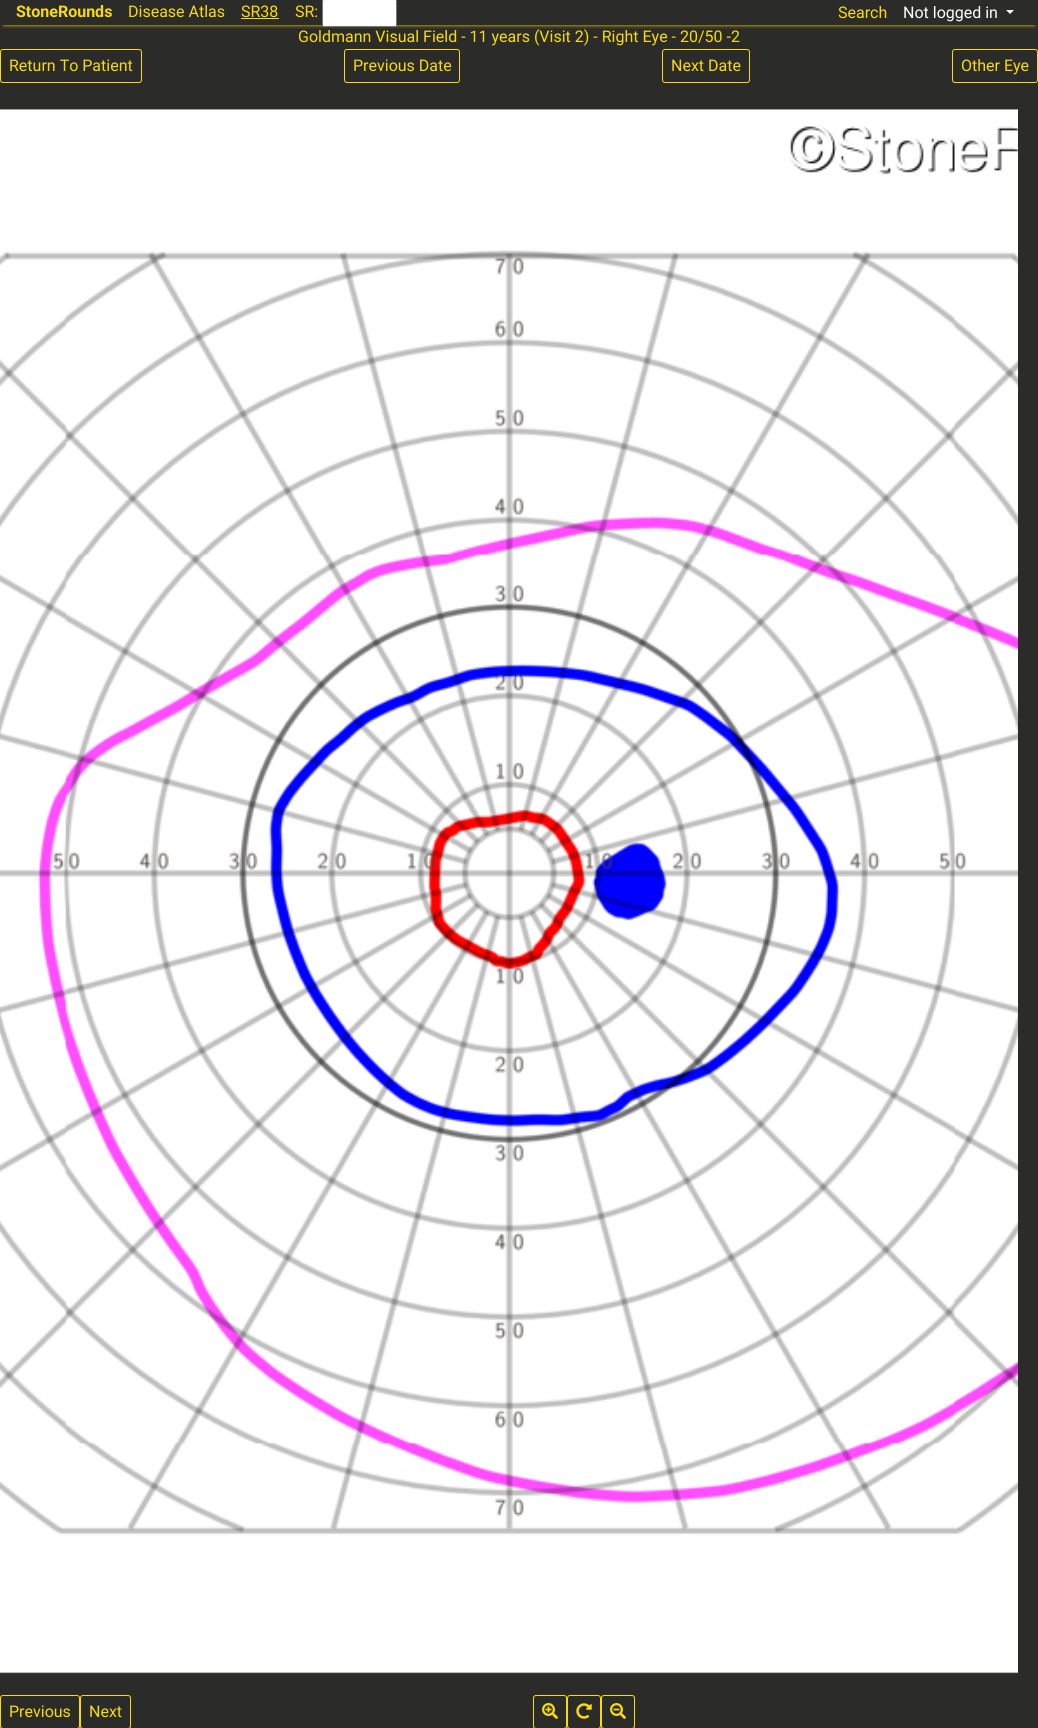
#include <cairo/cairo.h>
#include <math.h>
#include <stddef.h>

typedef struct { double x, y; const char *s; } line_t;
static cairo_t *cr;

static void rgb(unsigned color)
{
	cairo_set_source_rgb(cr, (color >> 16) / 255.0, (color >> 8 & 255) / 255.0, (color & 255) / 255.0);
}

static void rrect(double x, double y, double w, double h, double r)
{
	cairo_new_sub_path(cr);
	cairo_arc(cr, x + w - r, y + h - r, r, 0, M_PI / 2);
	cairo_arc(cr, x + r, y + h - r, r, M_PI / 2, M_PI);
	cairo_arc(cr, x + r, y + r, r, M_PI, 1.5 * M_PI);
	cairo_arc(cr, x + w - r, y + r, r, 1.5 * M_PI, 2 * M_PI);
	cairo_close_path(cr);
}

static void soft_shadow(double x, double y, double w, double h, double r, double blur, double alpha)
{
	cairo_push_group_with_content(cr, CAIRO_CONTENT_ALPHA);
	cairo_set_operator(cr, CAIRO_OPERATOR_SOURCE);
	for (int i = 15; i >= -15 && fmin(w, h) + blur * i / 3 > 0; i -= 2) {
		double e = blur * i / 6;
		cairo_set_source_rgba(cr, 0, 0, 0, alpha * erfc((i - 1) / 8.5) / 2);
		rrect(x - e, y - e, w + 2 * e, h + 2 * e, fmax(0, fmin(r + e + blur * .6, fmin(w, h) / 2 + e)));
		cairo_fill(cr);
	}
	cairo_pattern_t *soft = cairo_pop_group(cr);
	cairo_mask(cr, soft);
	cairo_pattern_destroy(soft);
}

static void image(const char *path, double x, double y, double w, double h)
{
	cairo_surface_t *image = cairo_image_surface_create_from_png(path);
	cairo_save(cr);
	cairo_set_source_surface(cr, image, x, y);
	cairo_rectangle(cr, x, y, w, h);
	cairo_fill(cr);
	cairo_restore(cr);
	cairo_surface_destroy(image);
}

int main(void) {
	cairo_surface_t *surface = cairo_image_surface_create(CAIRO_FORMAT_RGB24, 1038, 1728);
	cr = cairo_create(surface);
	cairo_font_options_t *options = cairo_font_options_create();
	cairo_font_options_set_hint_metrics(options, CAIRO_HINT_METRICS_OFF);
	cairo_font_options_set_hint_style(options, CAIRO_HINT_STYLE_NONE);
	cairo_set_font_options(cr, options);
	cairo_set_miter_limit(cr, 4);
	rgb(0x2b2b2a);
	cairo_paint(cr);
	cairo_save(cr);
	cairo_rectangle(cr, 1, 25, 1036, 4);
	cairo_clip(cr);
	rgb(0xf9dc06);
	soft_shadow(4, 8, 1030, 17, 0, 2, 1);
	cairo_restore(cr);
	rgb(0xf9dc06);
	cairo_rectangle(cr, 241, 18, 38, 1);
	cairo_fill(cr);
	rgb(0xffffff);
	rrect(322.5, -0.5, 74, 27, 1.5);
	cairo_fill_preserve(cr);
	rgb(0x767676);
	cairo_set_line_width(cr, 1);
	cairo_stroke(cr);
	rgb(0xffffff);
	cairo_new_path(cr);
	cairo_move_to(cr, 1006, 10);
	cairo_line_to(cr, 1014, 10);
	cairo_line_to(cr, 1010, 14);
	cairo_close_path(cr);
	cairo_fill(cr);
	rrect(0.5, 49.5, 141, 33, 2.5);
	rgb(0xf9dc06);
	cairo_stroke(cr);
	rrect(344.5, 49.5, 115, 33, 2.5);
	cairo_stroke(cr);
	rrect(662.5, 49.5, 87, 33, 2.5);
	cairo_stroke(cr);
	rrect(952.5, 49.5, 85, 33, 2.5);
	cairo_stroke(cr);
	image("img/1.png", 0, 109, 1018, 1565);
	rrect(0.5, 1695.5, 79, 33, 2.5);
	cairo_stroke(cr);
	rrect(80.5, 1695.5, 50, 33, 2.5);
	cairo_stroke(cr);
	rrect(533.5, 1695.5, 33, 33, 2.5);
	cairo_stroke(cr);
	image("img/2.png", 542, 1703, 16, 16);
	rrect(567.5, 1695.5, 33, 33, 2.5);
	cairo_stroke(cr);
	image("img/3.png", 576, 1703, 16, 16);
	rrect(601.5, 1695.5, 33, 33, 2.5);
	cairo_stroke(cr);
	image("img/4.png", 610, 1703, 16, 16);
	cairo_select_font_face(cr, "Roboto", CAIRO_FONT_SLANT_NORMAL, CAIRO_FONT_WEIGHT_BOLD);
	cairo_set_font_size(cr, 16);
	cairo_move_to(cr, 16, 17);
	cairo_show_text(cr, "StoneRounds");
	cairo_select_font_face(cr, "Roboto", CAIRO_FONT_SLANT_NORMAL, CAIRO_FONT_WEIGHT_NORMAL);
	{
		static const line_t items[] = {
			{128, 17, "Disease Atlas"},
			{241, 17, "SR38"},
			{295, 17, "SR:"},
			{838, 18, "Search"},
		};
		for (size_t i = 0; i < sizeof items / sizeof *items; i++) {
			cairo_move_to(cr, items[i].x, items[i].y);
			cairo_show_text(cr, items[i].s);
		}
	}
	rgb(0xffffff);
	cairo_move_to(cr, 903, 18);
	cairo_show_text(cr, "Not logged in");
	rgb(0xf9dc06);
	{
		static const line_t items[] = {
			{298, 42, "Goldmann Visual Field - 11 years (Visit 2) - Right Eye - 20/50 -2"},
			{9, 71, "Return To Patient"},
			{353, 71, "Previous Date"},
			{671, 71, "Next Date"},
			{961, 71, "Other Eye"},
			{9, 1717, "Previous"},
			{89, 1717, "Next"},
		};
		for (size_t i = 0; i < sizeof items / sizeof *items; i++) {
			cairo_move_to(cr, items[i].x, items[i].y);
			cairo_show_text(cr, items[i].s);
		}
	}
	cairo_surface_write_to_png(surface, "page.png");
	cairo_font_options_destroy(options);
	cairo_destroy(cr);
	cairo_surface_destroy(surface);
	return 0;
}
